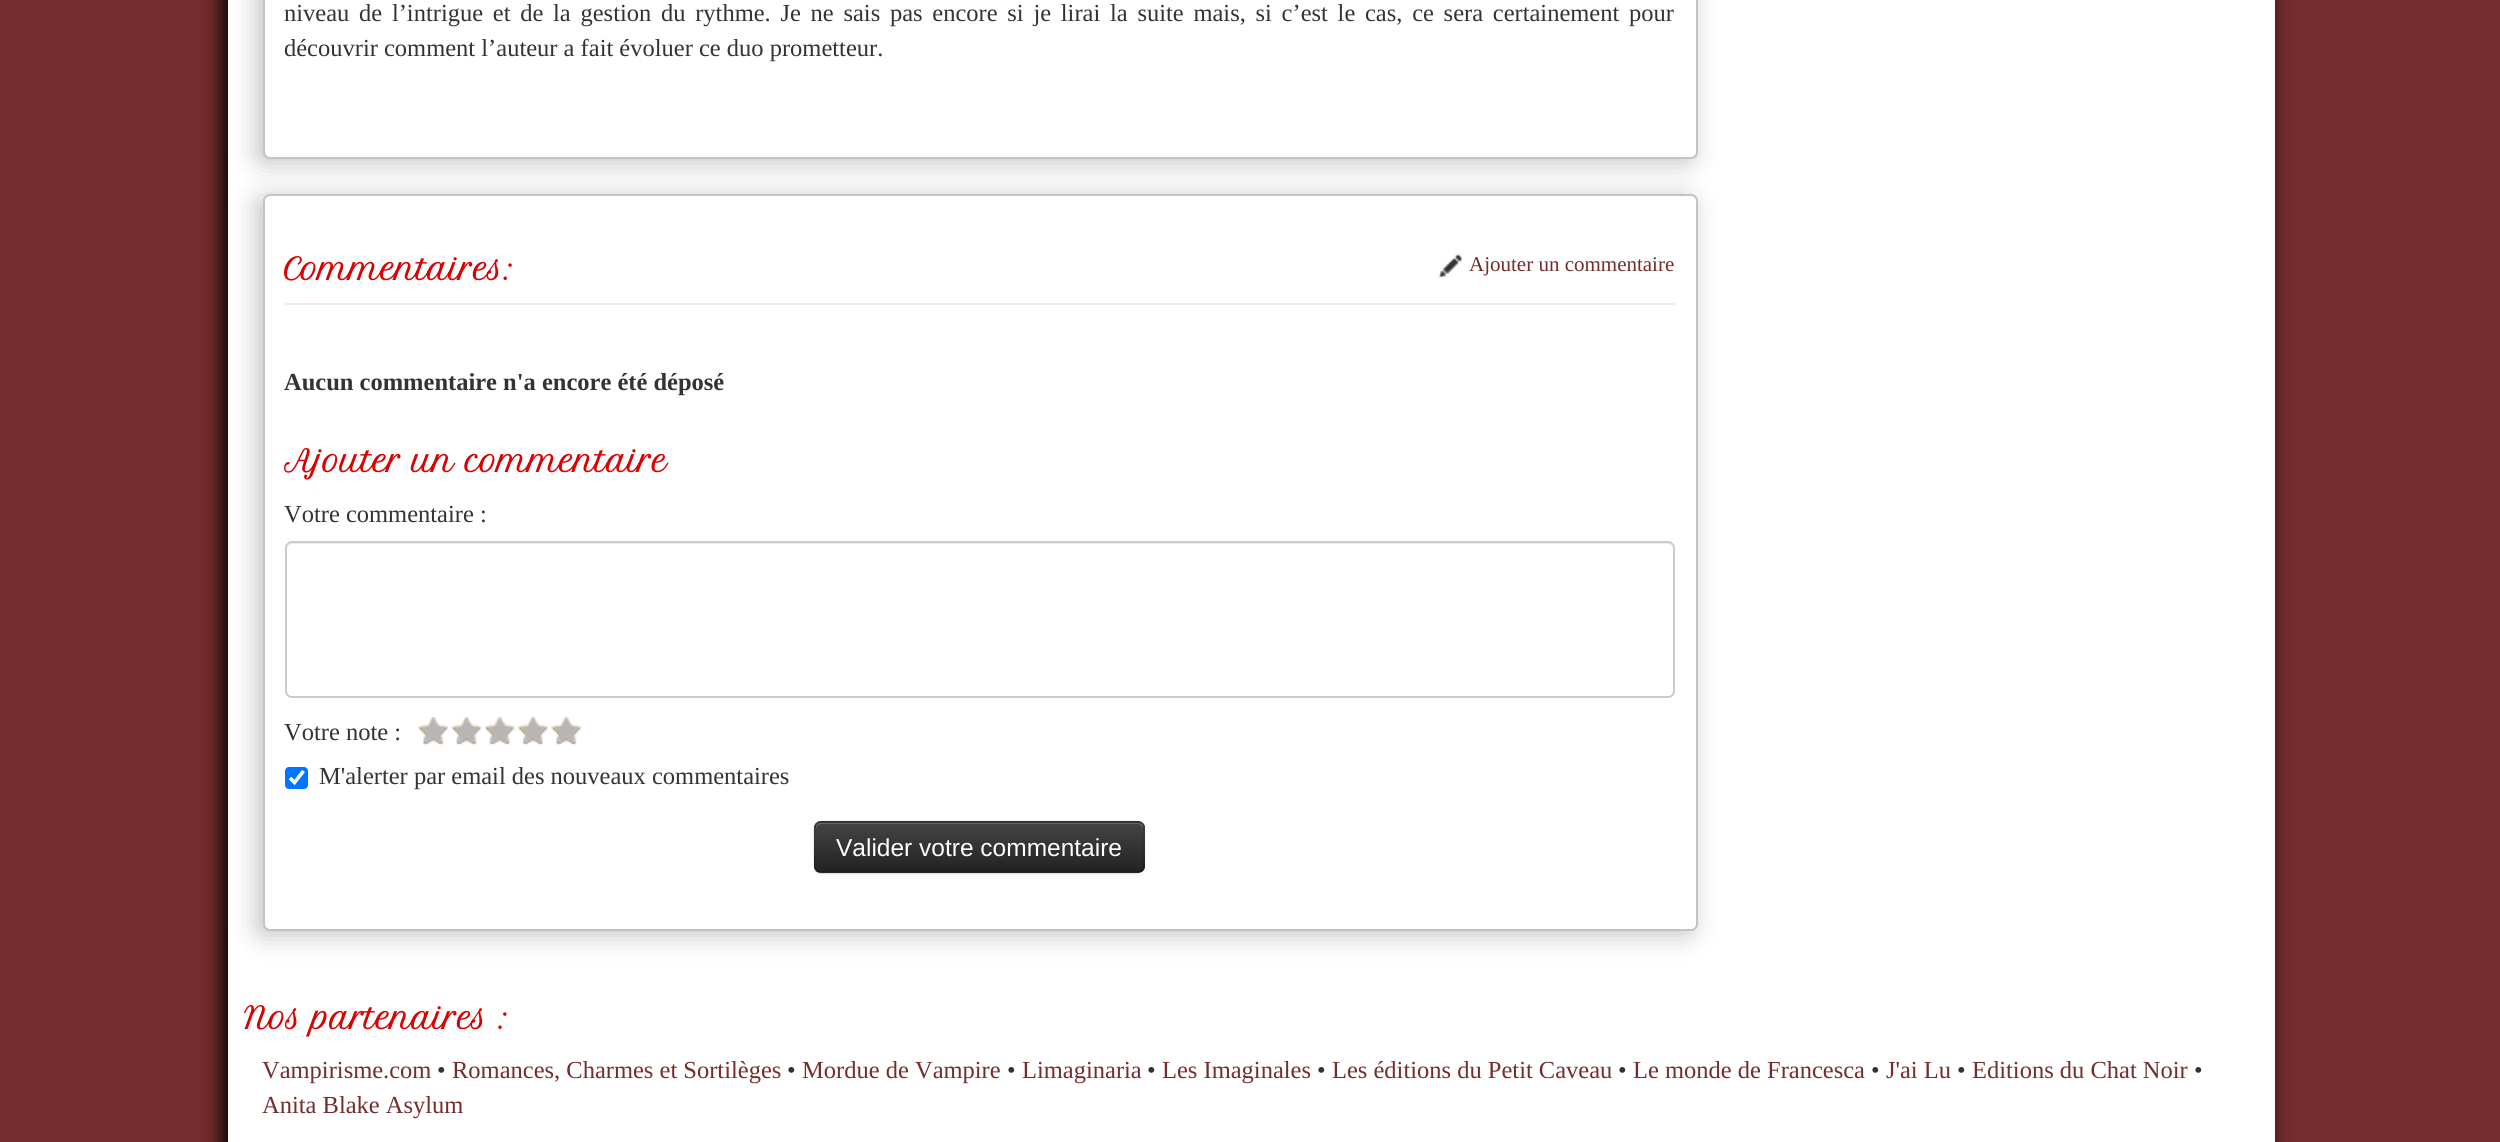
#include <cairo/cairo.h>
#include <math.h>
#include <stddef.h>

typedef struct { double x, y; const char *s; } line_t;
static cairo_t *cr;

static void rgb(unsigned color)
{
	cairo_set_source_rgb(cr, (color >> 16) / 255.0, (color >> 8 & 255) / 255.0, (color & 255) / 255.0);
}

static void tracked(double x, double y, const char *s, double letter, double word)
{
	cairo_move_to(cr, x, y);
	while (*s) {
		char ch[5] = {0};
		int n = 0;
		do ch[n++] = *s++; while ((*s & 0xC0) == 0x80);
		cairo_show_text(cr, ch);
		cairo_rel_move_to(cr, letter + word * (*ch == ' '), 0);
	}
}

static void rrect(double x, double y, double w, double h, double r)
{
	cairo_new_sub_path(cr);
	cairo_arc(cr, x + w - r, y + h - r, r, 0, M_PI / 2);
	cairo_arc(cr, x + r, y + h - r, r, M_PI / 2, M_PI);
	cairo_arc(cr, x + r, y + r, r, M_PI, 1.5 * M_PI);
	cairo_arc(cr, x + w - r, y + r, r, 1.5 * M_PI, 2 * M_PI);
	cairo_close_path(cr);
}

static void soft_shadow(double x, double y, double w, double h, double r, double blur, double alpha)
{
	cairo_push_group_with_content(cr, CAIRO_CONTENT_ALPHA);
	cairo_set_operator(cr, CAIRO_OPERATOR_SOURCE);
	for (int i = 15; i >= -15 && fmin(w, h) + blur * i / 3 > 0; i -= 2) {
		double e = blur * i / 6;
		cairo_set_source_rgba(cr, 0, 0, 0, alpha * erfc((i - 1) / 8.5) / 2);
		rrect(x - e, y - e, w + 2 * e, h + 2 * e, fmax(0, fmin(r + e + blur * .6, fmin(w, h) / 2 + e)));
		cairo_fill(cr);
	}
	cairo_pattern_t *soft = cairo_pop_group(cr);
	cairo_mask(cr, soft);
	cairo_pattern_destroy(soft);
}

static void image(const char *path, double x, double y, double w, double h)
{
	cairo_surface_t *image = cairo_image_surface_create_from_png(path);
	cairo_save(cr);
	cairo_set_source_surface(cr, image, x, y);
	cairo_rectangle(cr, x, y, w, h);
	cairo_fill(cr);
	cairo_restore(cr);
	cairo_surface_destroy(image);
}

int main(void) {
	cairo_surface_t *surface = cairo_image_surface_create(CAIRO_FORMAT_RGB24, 2500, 1142);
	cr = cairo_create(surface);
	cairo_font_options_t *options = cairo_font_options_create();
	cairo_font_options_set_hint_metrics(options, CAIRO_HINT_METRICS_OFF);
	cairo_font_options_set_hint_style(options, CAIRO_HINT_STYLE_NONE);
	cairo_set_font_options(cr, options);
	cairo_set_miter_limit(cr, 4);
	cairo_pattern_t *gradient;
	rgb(0x742c2c);
	cairo_paint(cr);
	rgb(0x000000);
	soft_shadow(222, -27, 2048, 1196, 0, 9, 1);
	rgb(0xffffff);
	cairo_rectangle(cr, 228, 0, 2047, 1142);
	cairo_fill(cr);
	rgb(0xc3c3c3);
	soft_shadow(257, -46, 1435, 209, 7, 13, 1);
	rgb(0xffffff);
	rrect(264, -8, 1433, 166, 6);
	cairo_fill_preserve(cr);
	rgb(0xc3c3c3);
	cairo_stroke(cr);
	rgb(0xc3c3c3);
	soft_shadow(257, 198, 1435, 737, 7, 13, 1);
	rgb(0xffffff);
	rrect(264, 195, 1433, 735, 6);
	cairo_fill_preserve(cr);
	rgb(0xc3c3c3);
	cairo_stroke(cr);
	rgb(0xeeeeee);
	cairo_rectangle(cr, 285, 303, 1390, 2);
	cairo_fill(cr);
	image("img/1.png", 1438, 253, 24, 26);
	rgb(0xececec);
	cairo_new_path(cr);
	cairo_move_to(cr, 292, 544);
	cairo_line_to(cr, 1668, 544);
	cairo_curve_to(cr, 1671, 544, 1673, 547, 1673, 550);
	cairo_curve_to(cr, 1673, 547, 1672, 543, 1668, 543);
	cairo_line_to(cr, 292, 543);
	cairo_curve_to(cr, 288, 543, 287, 547, 287, 550);
	cairo_curve_to(cr, 287, 547, 289, 544, 292, 544);
	cairo_close_path(cr);
	cairo_fill(cr);
	rrect(286, 542, 1388, 155, 6);
	rgb(0xcccccc);
	cairo_stroke(cr);
	image("img/2.png", 418, 716, 30, 29);
	image("img/3.png", 451, 716, 31, 29);
	image("img/4.png", 484, 716, 31, 29);
	image("img/5.png", 518, 716, 30, 29);
	image("img/6.png", 551, 716, 30, 29);
	rgb(0x0075ff);
	rrect(285, 767, 23, 22, 4);
	cairo_fill(cr);
	cairo_new_path(cr);
	cairo_move_to(cr, 290, 778);
	cairo_line_to(cr, 294.5, 782.5);
	cairo_line_to(cr, 303.5, 771);
	rgb(0xffffff);
	cairo_set_line_width(cr, 3.6);
	cairo_stroke(cr);
	rgb(0x000000);
	soft_shadow(814, 823, 331, 52, 7, 2, 0.05);
	rgb(0x363636);
	rrect(814, 821, 331, 52, 7);
	cairo_fill(cr);
	cairo_save(cr);
	rrect(814, 821, 331, 52, 7);
	cairo_clip(cr);
	gradient = cairo_pattern_create_linear(979, 823, 979, 872);
	cairo_pattern_add_color_stop_rgba(gradient, 0, 0.267, 0.267, 0.267, 1);
	cairo_pattern_add_color_stop_rgba(gradient, 1, 0.133, 0.133, 0.133, 1);
	cairo_set_source(cr, gradient);
	cairo_pattern_destroy(gradient);
	cairo_rectangle(cr, 814, 823, 331, 49);
	cairo_fill(cr);
	cairo_restore(cr);
	cairo_set_source_rgba(cr, 1, 1, 1, 0.2);
	cairo_new_path(cr);
	cairo_move_to(cr, 821, 824);
	cairo_line_to(cr, 1138, 824);
	cairo_curve_to(cr, 1140, 824, 1143, 827, 1143, 830);
	cairo_line_to(cr, 1143, 828);
	cairo_curve_to(cr, 1143, 825, 1141, 823, 1138, 823);
	cairo_line_to(cr, 821, 823);
	cairo_curve_to(cr, 818, 823, 816, 825, 816, 828);
	cairo_line_to(cr, 816, 830);
	cairo_curve_to(cr, 816, 827, 818, 824, 821, 824);
	cairo_close_path(cr);
	cairo_fill(cr);
	cairo_new_path(cr);
	cairo_move_to(cr, 1142, 870.5);
	cairo_curve_to(cr, 1140.5, 871.5, 1139, 872.5, 1137.5, 872.5);
	cairo_line_to(cr, 821, 872.5);
	cairo_curve_to(cr, 819, 872.5, 817.5, 871.5, 816.5, 870.5);
	cairo_set_source_rgba(cr, 0, 0, 0, 0.25);
	cairo_set_line_width(cr, 1.8);
	cairo_stroke(cr);
	cairo_new_path(cr);
	cairo_move_to(cr, 816.5, 870.5);
	cairo_curve_to(cr, 815.5, 869.5, 814.5, 868, 814.5, 866);
	cairo_line_to(cr, 814.5, 828);
	cairo_curve_to(cr, 814.5, 826, 815.5, 824.5, 816.5, 823.5);
	cairo_curve_to(cr, 817.5, 822.5, 819, 821.5, 821, 821.5);
	cairo_line_to(cr, 1137.5, 821.5);
	cairo_curve_to(cr, 1139, 821.5, 1140.5, 822.5, 1142, 823.5);
	cairo_curve_to(cr, 1143, 824.5, 1143.5, 826, 1143.5, 828);
	cairo_line_to(cr, 1143.5, 866);
	cairo_curve_to(cr, 1143.5, 868, 1143, 869.5, 1142, 870.5);
	cairo_set_source_rgba(cr, 0, 0, 0, 0.1);
	cairo_stroke(cr);
	cairo_select_font_face(cr, "Liberation Serif", CAIRO_FONT_SLANT_NORMAL, CAIRO_FONT_WEIGHT_NORMAL);
	cairo_set_font_size(cr, 24.5);
	rgb(0x333333);
	tracked(284, 21, "niveau de l’intrigue et de la gestion du rythme. Je ne sais pas encore si je lirai la suite mais, si c’est le cas, ce sera certainement pour", 0, 3.6);
	cairo_move_to(cr, 284, 56);
	cairo_show_text(cr, "découvrir comment l’auteur a fait évoluer ce duo prometteur.");
	cairo_select_font_face(cr, "Petit Formal Script", CAIRO_FONT_SLANT_NORMAL, CAIRO_FONT_WEIGHT_BOLD);
	cairo_set_font_size(cr, 29.4);
	rgb(0xd90202);
	cairo_move_to(cr, 284, 280);
	cairo_show_text(cr, "Commentaires:");
	cairo_select_font_face(cr, "Liberation Serif", CAIRO_FONT_SLANT_NORMAL, CAIRO_FONT_WEIGHT_NORMAL);
	cairo_set_font_size(cr, 21);
	rgb(0x742c2c);
	cairo_move_to(cr, 1469, 271);
	cairo_show_text(cr, "Ajouter un commentaire");
	cairo_select_font_face(cr, "Liberation Serif", CAIRO_FONT_SLANT_NORMAL, CAIRO_FONT_WEIGHT_BOLD);
	cairo_set_font_size(cr, 24.5);
	rgb(0x333333);
	cairo_move_to(cr, 284, 390);
	cairo_show_text(cr, "Aucun commentaire n'a encore été déposé");
	cairo_select_font_face(cr, "Petit Formal Script", CAIRO_FONT_SLANT_NORMAL, CAIRO_FONT_WEIGHT_BOLD);
	cairo_set_font_size(cr, 29.4);
	rgb(0xd90202);
	cairo_move_to(cr, 284, 472);
	cairo_show_text(cr, "Ajouter un commentaire");
	cairo_select_font_face(cr, "Liberation Serif", CAIRO_FONT_SLANT_NORMAL, CAIRO_FONT_WEIGHT_NORMAL);
	cairo_set_font_size(cr, 24.5);
	rgb(0x333333);
	{
		static const line_t items[] = {
			{284, 522, "Votre commentaire :"},
			{284, 740, "Votre note :"},
			{319, 784, "M'alerter par email des nouveaux commentaires"},
		};
		for (size_t i = 0; i < sizeof items / sizeof *items; i++) {
			cairo_move_to(cr, items[i].x, items[i].y);
			cairo_show_text(cr, items[i].s);
		}
	}
	cairo_select_font_face(cr, "Liberation Sans", CAIRO_FONT_SLANT_NORMAL, CAIRO_FONT_WEIGHT_NORMAL);
	rgb(0xffffff);
	cairo_move_to(cr, 836, 856);
	cairo_show_text(cr, "Valider votre commentaire");
	cairo_select_font_face(cr, "Petit Formal Script", CAIRO_FONT_SLANT_NORMAL, CAIRO_FONT_WEIGHT_BOLD);
	cairo_set_font_size(cr, 29.4);
	rgb(0xd90202);
	cairo_move_to(cr, 244, 1029);
	cairo_show_text(cr, "Nos partenaires :");
	cairo_select_font_face(cr, "Liberation Serif", CAIRO_FONT_SLANT_NORMAL, CAIRO_FONT_WEIGHT_NORMAL);
	cairo_set_font_size(cr, 24.5);
	rgb(0x742c2c);
	cairo_move_to(cr, 262, 1078);
	cairo_show_text(cr, "Vampirisme.com");
	rgb(0x333333);
	cairo_move_to(cr, 437, 1078);
	cairo_show_text(cr, "•");
	rgb(0x742c2c);
	cairo_move_to(cr, 452, 1078);
	cairo_show_text(cr, "Romances, Charmes et Sortilèges");
	rgb(0x333333);
	cairo_move_to(cr, 787, 1078);
	cairo_show_text(cr, "•");
	rgb(0x742c2c);
	cairo_move_to(cr, 802, 1078);
	cairo_show_text(cr, "Mordue de Vampire");
	rgb(0x333333);
	cairo_move_to(cr, 1007, 1078);
	cairo_show_text(cr, "•");
	rgb(0x742c2c);
	cairo_move_to(cr, 1022, 1078);
	cairo_show_text(cr, "Limaginaria");
	rgb(0x333333);
	cairo_move_to(cr, 1147, 1078);
	cairo_show_text(cr, "•");
	rgb(0x742c2c);
	cairo_move_to(cr, 1162, 1078);
	cairo_show_text(cr, "Les Imaginales");
	rgb(0x333333);
	cairo_move_to(cr, 1317, 1078);
	cairo_show_text(cr, "•");
	rgb(0x742c2c);
	cairo_move_to(cr, 1332, 1078);
	cairo_show_text(cr, "Les éditions du Petit Caveau");
	rgb(0x333333);
	cairo_move_to(cr, 1618, 1078);
	cairo_show_text(cr, "•");
	rgb(0x742c2c);
	cairo_move_to(cr, 1633, 1078);
	cairo_show_text(cr, "Le monde de Francesca");
	rgb(0x333333);
	cairo_move_to(cr, 1871, 1078);
	cairo_show_text(cr, "•");
	rgb(0x742c2c);
	cairo_move_to(cr, 1886, 1078);
	cairo_show_text(cr, "J'ai Lu");
	rgb(0x333333);
	cairo_move_to(cr, 1957, 1078);
	cairo_show_text(cr, "•");
	rgb(0x742c2c);
	cairo_move_to(cr, 1972, 1078);
	cairo_show_text(cr, "Editions du Chat Noir");
	rgb(0x333333);
	cairo_move_to(cr, 2194, 1078);
	cairo_show_text(cr, "•");
	rgb(0x742c2c);
	cairo_move_to(cr, 262, 1113);
	cairo_show_text(cr, "Anita Blake Asylum");
	cairo_surface_write_to_png(surface, "page.png");
	cairo_font_options_destroy(options);
	cairo_destroy(cr);
	cairo_surface_destroy(surface);
	return 0;
}
